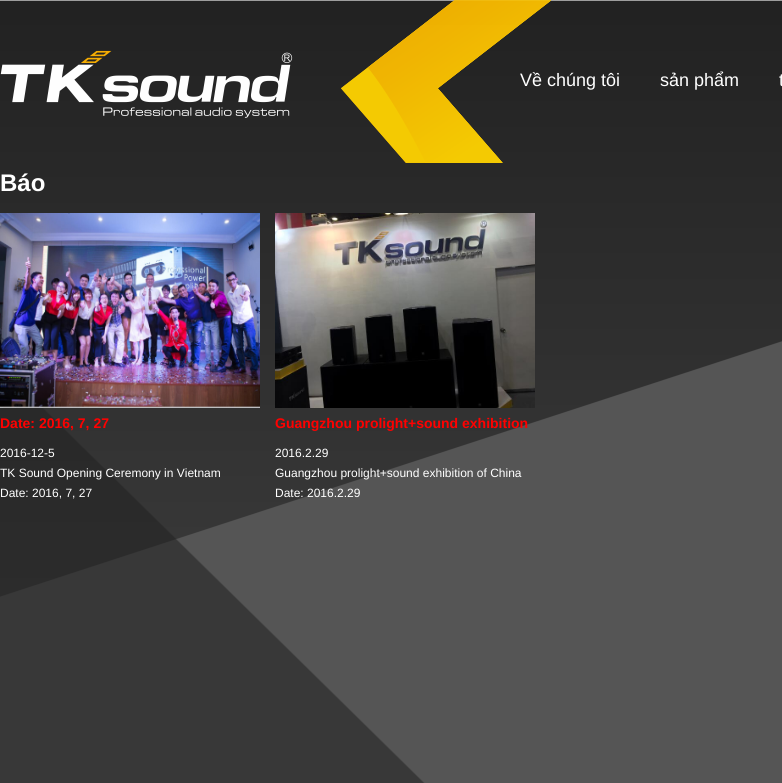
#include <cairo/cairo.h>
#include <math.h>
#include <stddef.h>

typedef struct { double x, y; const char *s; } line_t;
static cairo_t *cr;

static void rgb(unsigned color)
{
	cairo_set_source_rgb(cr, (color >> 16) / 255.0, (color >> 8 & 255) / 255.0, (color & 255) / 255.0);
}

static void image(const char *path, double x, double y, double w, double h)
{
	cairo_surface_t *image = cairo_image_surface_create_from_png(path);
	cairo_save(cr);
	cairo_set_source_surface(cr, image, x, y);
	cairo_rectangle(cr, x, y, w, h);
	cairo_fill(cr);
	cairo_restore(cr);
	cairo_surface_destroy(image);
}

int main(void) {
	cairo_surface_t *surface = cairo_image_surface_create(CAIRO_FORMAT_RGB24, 782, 783);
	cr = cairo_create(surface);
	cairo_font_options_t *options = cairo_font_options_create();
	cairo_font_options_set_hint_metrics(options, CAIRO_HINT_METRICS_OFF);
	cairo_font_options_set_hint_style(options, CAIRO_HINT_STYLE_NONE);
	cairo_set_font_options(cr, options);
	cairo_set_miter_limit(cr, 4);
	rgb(0xeeeeee);
	cairo_paint(cr);
	image("img/1.png", 0, 0, 782, 783);
	image("img/2.png", 0, 50, 293, 68);
	image("img/3.png", 341, 0, 210, 163);
	image("img/4.png", 0, 213, 260, 195);
	image("img/5.png", 275, 213, 260, 195);
	cairo_select_font_face(cr, "Liberation Sans", CAIRO_FONT_SLANT_NORMAL, CAIRO_FONT_WEIGHT_NORMAL);
	cairo_set_font_size(cr, 18);
	rgb(0xffffff);
	{
		static const line_t items[] = {
			{520, 86, "Về chúng tôi"},
			{660, 86, "sản phẩm"},
			{779, 86, "t"},
		};
		for (size_t i = 0; i < sizeof items / sizeof *items; i++) {
			cairo_move_to(cr, items[i].x, items[i].y);
			cairo_show_text(cr, items[i].s);
		}
	}
	cairo_select_font_face(cr, "Liberation Sans", CAIRO_FONT_SLANT_NORMAL, CAIRO_FONT_WEIGHT_BOLD);
	cairo_set_font_size(cr, 24);
	cairo_move_to(cr, 0, 191);
	cairo_show_text(cr, "Báo");
	cairo_set_font_size(cr, 14);
	rgb(0xff0000);
	cairo_move_to(cr, 0, 428);
	cairo_show_text(cr, "Date: 2016, 7, 27");
	cairo_select_font_face(cr, "Liberation Sans", CAIRO_FONT_SLANT_NORMAL, CAIRO_FONT_WEIGHT_NORMAL);
	cairo_set_font_size(cr, 12);
	rgb(0xffffff);
	{
		static const line_t items[] = {
			{0, 457, "2016-12-5"},
			{0, 477, "TK Sound Opening Ceremony in Vietnam"},
			{0, 497, "Date: 2016, 7, 27"},
		};
		for (size_t i = 0; i < sizeof items / sizeof *items; i++) {
			cairo_move_to(cr, items[i].x, items[i].y);
			cairo_show_text(cr, items[i].s);
		}
	}
	cairo_select_font_face(cr, "Liberation Sans", CAIRO_FONT_SLANT_NORMAL, CAIRO_FONT_WEIGHT_BOLD);
	cairo_set_font_size(cr, 14);
	rgb(0xff0000);
	cairo_move_to(cr, 275, 428);
	cairo_show_text(cr, "Guangzhou prolight+sound exhibition");
	cairo_select_font_face(cr, "Liberation Sans", CAIRO_FONT_SLANT_NORMAL, CAIRO_FONT_WEIGHT_NORMAL);
	cairo_set_font_size(cr, 12);
	rgb(0xffffff);
	{
		static const line_t items[] = {
			{275, 457, "2016.2.29"},
			{275, 477, "Guangzhou prolight+sound exhibition of China"},
			{275, 497, "Date: 2016.2.29"},
		};
		for (size_t i = 0; i < sizeof items / sizeof *items; i++) {
			cairo_move_to(cr, items[i].x, items[i].y);
			cairo_show_text(cr, items[i].s);
		}
	}
	cairo_surface_write_to_png(surface, "page.png");
	cairo_font_options_destroy(options);
	cairo_destroy(cr);
	cairo_surface_destroy(surface);
	return 0;
}
